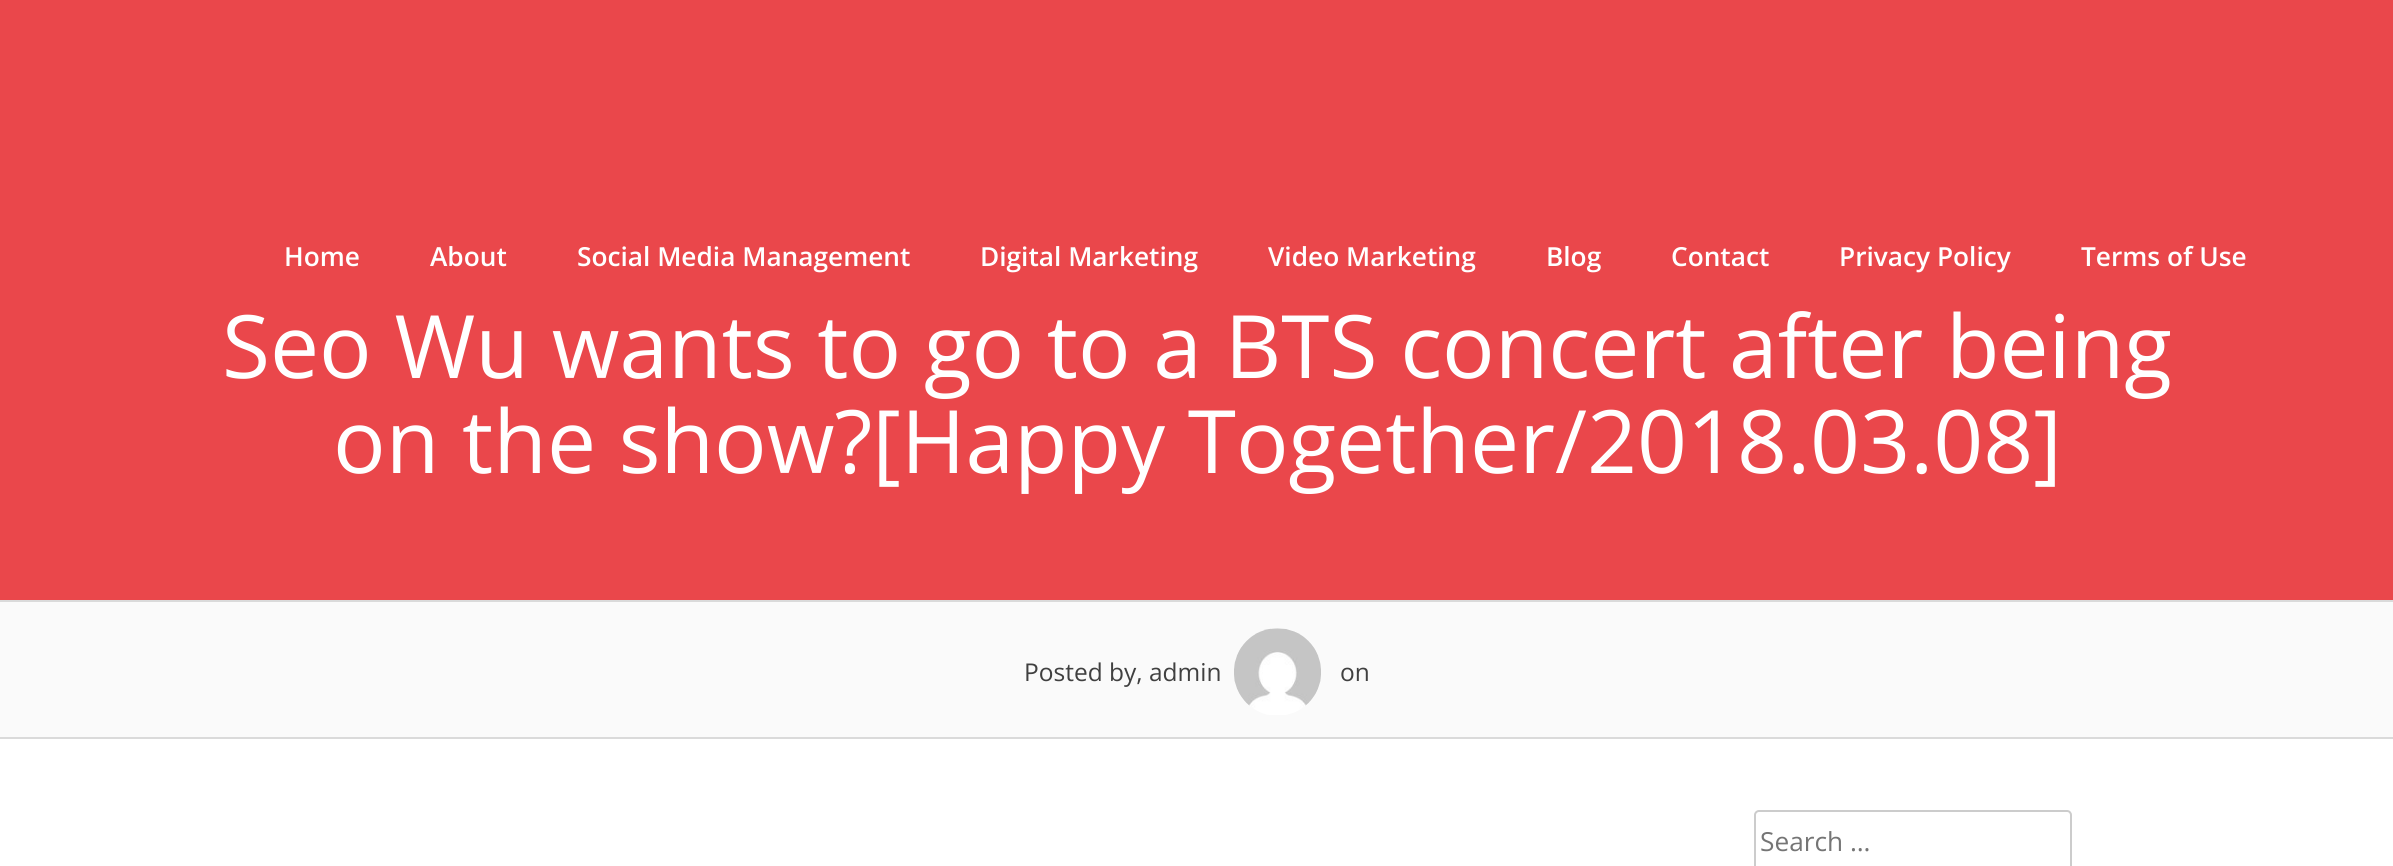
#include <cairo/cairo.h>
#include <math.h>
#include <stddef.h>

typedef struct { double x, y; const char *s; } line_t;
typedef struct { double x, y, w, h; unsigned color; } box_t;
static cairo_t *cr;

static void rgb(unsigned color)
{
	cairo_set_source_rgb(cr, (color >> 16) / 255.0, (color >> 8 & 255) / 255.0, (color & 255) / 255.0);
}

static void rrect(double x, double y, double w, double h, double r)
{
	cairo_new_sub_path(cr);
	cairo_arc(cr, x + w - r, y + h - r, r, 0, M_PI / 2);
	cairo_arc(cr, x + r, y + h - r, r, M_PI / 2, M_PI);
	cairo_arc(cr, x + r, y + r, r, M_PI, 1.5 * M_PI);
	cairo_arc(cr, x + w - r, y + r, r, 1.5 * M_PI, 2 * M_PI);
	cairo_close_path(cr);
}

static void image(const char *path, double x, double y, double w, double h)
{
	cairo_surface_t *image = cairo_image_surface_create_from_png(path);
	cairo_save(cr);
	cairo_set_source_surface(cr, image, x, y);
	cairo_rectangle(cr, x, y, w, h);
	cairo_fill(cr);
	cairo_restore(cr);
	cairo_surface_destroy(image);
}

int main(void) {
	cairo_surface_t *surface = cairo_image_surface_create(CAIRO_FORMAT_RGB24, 2393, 866);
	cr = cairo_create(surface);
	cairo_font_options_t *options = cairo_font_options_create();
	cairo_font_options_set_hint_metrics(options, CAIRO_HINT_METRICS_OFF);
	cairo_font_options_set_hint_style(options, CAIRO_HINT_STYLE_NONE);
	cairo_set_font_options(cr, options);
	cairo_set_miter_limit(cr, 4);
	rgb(0xffffff);
	cairo_paint(cr);
	{
		static const box_t items[] = {
			{0, 0, 2393, 600, 0xea474b},
			{0, 602, 2393, 135, 0xfafafa},
			{0, 600, 2393, 2, 0xdadada},
			{0, 737, 2393, 2, 0xdadada},
		};
		for (size_t i = 0; i < sizeof items / sizeof *items; i++) {
			rgb(items[i].color);
			cairo_rectangle(cr, items[i].x, items[i].y, items[i].w, items[i].h);
			cairo_fill(cr);
		}
	}
	image("img/1.png", 1234, 628, 87, 87);
	rrect(1755, 811, 316, 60, 4);
	rgb(0xcccccc);
	cairo_stroke(cr);
	cairo_select_font_face(cr, "Open Sans SemiBold", CAIRO_FONT_SLANT_NORMAL, CAIRO_FONT_WEIGHT_NORMAL);
	cairo_set_font_size(cr, 26.25);
	rgb(0xffffff);
	{
		static const line_t items[] = {
			{284, 266, "Home"},
			{430, 266, "About"},
			{577, 266, "Social Media Management"},
			{980, 266, "Digital Marketing"},
			{1268, 266, "Video Marketing"},
			{1546, 266, "Blog"},
			{1671, 266, "Contact"},
			{1839, 266, "Privacy Policy"},
			{2081, 266, "Terms of Use"},
		};
		for (size_t i = 0; i < sizeof items / sizeof *items; i++) {
			cairo_move_to(cr, items[i].x, items[i].y);
			cairo_show_text(cr, items[i].s);
		}
	}
	cairo_select_font_face(cr, "Open Sans", CAIRO_FONT_SLANT_NORMAL, CAIRO_FONT_WEIGHT_NORMAL);
	cairo_set_font_size(cr, 87.5);
	cairo_move_to(cr, 222, 378);
	cairo_show_text(cr, "Seo Wu wants to go to a BTS concert after being");
	cairo_move_to(cr, 333, 473);
	cairo_show_text(cr, "on the show?[Happy Together/2018.03.08]");
	cairo_set_font_size(cr, 24.5);
	rgb(0x404040);
	cairo_move_to(cr, 1024, 681);
	cairo_show_text(cr, "Posted by, admin");
	cairo_move_to(cr, 1340, 681);
	cairo_show_text(cr, "on");
	cairo_set_font_size(cr, 26.25);
	rgb(0x757575);
	cairo_move_to(cr, 1760, 851);
	cairo_show_text(cr, "Search …");
	cairo_surface_write_to_png(surface, "page.png");
	cairo_font_options_destroy(options);
	cairo_destroy(cr);
	cairo_surface_destroy(surface);
	return 0;
}
